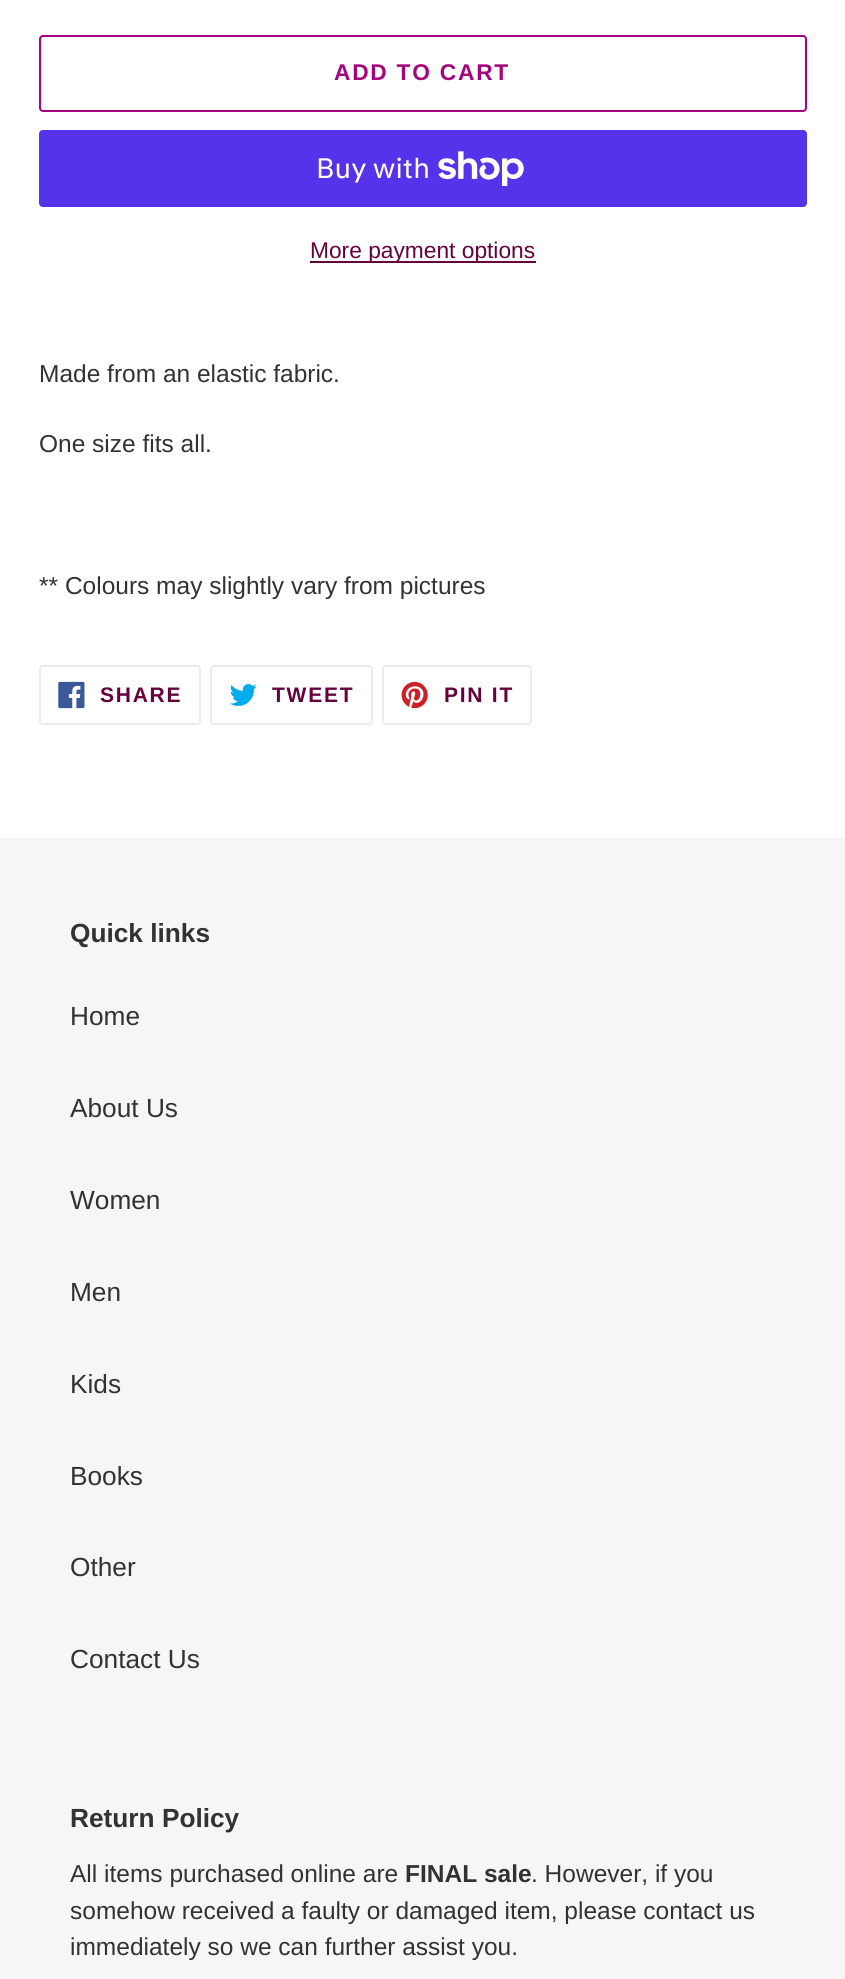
#include <cairo/cairo.h>
#include <math.h>
#include <stddef.h>

typedef struct { double x, y; const char *s; } line_t;
static cairo_t *cr;

static void rgb(unsigned color)
{
	cairo_set_source_rgb(cr, (color >> 16) / 255.0, (color >> 8 & 255) / 255.0, (color & 255) / 255.0);
}

static void tracked(double x, double y, const char *s, double letter, double word)
{
	cairo_move_to(cr, x, y);
	while (*s) {
		char ch[5] = {0};
		int n = 0;
		do ch[n++] = *s++; while ((*s & 0xC0) == 0x80);
		cairo_show_text(cr, ch);
		cairo_rel_move_to(cr, letter + word * (*ch == ' '), 0);
	}
}

static void rrect(double x, double y, double w, double h, double r)
{
	cairo_new_sub_path(cr);
	cairo_arc(cr, x + w - r, y + h - r, r, 0, M_PI / 2);
	cairo_arc(cr, x + r, y + h - r, r, M_PI / 2, M_PI);
	cairo_arc(cr, x + r, y + r, r, M_PI, 1.5 * M_PI);
	cairo_arc(cr, x + w - r, y + r, r, 1.5 * M_PI, 2 * M_PI);
	cairo_close_path(cr);
}

static void image(const char *path, double x, double y, double w, double h)
{
	cairo_surface_t *image = cairo_image_surface_create_from_png(path);
	cairo_save(cr);
	cairo_set_source_surface(cr, image, x, y);
	cairo_rectangle(cr, x, y, w, h);
	cairo_fill(cr);
	cairo_restore(cr);
	cairo_surface_destroy(image);
}

int main(void) {
	cairo_surface_t *surface = cairo_image_surface_create(CAIRO_FORMAT_RGB24, 845, 1979);
	cr = cairo_create(surface);
	cairo_font_options_t *options = cairo_font_options_create();
	cairo_font_options_set_hint_metrics(options, CAIRO_HINT_METRICS_OFF);
	cairo_font_options_set_hint_style(options, CAIRO_HINT_STYLE_NONE);
	cairo_set_font_options(cr, options);
	cairo_set_miter_limit(cr, 4);
	rgb(0xffffff);
	cairo_paint(cr);
	rrect(40, 36, 766, 75, 3);
	rgb(0xa4047c);
	cairo_stroke(cr);
	rgb(0x5433eb);
	rrect(39, 130, 768, 77, 4);
	cairo_fill(cr);
	image("img/1.png", 438, 151, 86, 35);
	rgb(0x65013d);
	cairo_rectangle(cr, 310, 261, 226, 2);
	cairo_fill(cr);
	rrect(40, 666, 160, 58, 3);
	rgb(0xebebeb);
	cairo_stroke(cr);
	image("img/2.png", 58, 681, 27, 28);
	rrect(211, 666, 161, 58, 3);
	cairo_stroke(cr);
	image("img/3.png", 229, 684, 28, 22);
	rrect(383, 666, 148, 58, 3);
	cairo_stroke(cr);
	image("img/4.png", 401, 681, 27, 28);
	rgb(0xf6f6f6);
	cairo_rectangle(cr, 0, 838, 845, 1141);
	cairo_fill(cr);
	cairo_select_font_face(cr, "Liberation Sans", CAIRO_FONT_SLANT_NORMAL, CAIRO_FONT_WEIGHT_BOLD);
	cairo_set_font_size(cr, 22.75);
	rgb(0xa4047c);
	tracked(334, 80, "ADD TO CART", 1.75, 0);
	cairo_select_font_face(cr, "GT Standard", CAIRO_FONT_SLANT_NORMAL, CAIRO_FONT_WEIGHT_NORMAL);
	cairo_set_font_size(cr, 28);
	rgb(0xffffff);
	cairo_move_to(cr, 316, 178);
	cairo_show_text(cr, "Buy with");
	cairo_select_font_face(cr, "Liberation Sans", CAIRO_FONT_SLANT_NORMAL, CAIRO_FONT_WEIGHT_NORMAL);
	cairo_set_font_size(cr, 22.75);
	rgb(0x65013d);
	cairo_move_to(cr, 310, 258);
	cairo_show_text(cr, "More payment options");
	cairo_set_font_size(cr, 24.5);
	rgb(0x333232);
	{
		static const line_t items[] = {
			{39, 382, "Made from an elastic fabric."},
			{39, 452, "One size fits all."},
			{39, 594, "** Colours may slightly vary from pictures"},
		};
		for (size_t i = 0; i < sizeof items / sizeof *items; i++) {
			cairo_move_to(cr, items[i].x, items[i].y);
			cairo_show_text(cr, items[i].s);
		}
	}
	cairo_select_font_face(cr, "Liberation Sans", CAIRO_FONT_SLANT_NORMAL, CAIRO_FONT_WEIGHT_BOLD);
	cairo_set_font_size(cr, 21);
	rgb(0x65013d);
	{
		static const line_t items[] = {
			{100, 702, "SHARE"},
			{272, 702, "TWEET"},
			{444, 702, "PIN IT"},
		};
		for (size_t i = 0; i < sizeof items / sizeof *items; i++) {
			tracked(items[i].x, items[i].y, items[i].s, 1.75, 0);
		}
	}
	cairo_set_font_size(cr, 26.25);
	rgb(0x333232);
	cairo_move_to(cr, 70, 942);
	cairo_show_text(cr, "Quick links");
	cairo_select_font_face(cr, "Liberation Sans", CAIRO_FONT_SLANT_NORMAL, CAIRO_FONT_WEIGHT_NORMAL);
	{
		static const line_t items[] = {
			{70, 1025, "Home"},
			{70, 1117, "About Us"},
			{70, 1209, "Women"},
			{70, 1301, "Men"},
			{70, 1393, "Kids"},
			{70, 1485, "Books"},
			{70, 1576, "Other"},
			{70, 1668, "Contact Us"},
		};
		for (size_t i = 0; i < sizeof items / sizeof *items; i++) {
			cairo_move_to(cr, items[i].x, items[i].y);
			cairo_show_text(cr, items[i].s);
		}
	}
	cairo_select_font_face(cr, "Liberation Sans", CAIRO_FONT_SLANT_NORMAL, CAIRO_FONT_WEIGHT_BOLD);
	cairo_move_to(cr, 70, 1827);
	cairo_show_text(cr, "Return Policy");
	cairo_select_font_face(cr, "Liberation Sans", CAIRO_FONT_SLANT_NORMAL, CAIRO_FONT_WEIGHT_NORMAL);
	cairo_set_font_size(cr, 24.5);
	cairo_move_to(cr, 70, 1882);
	cairo_show_text(cr, "All items purchased online are");
	cairo_select_font_face(cr, "Liberation Sans", CAIRO_FONT_SLANT_NORMAL, CAIRO_FONT_WEIGHT_BOLD);
	cairo_move_to(cr, 405, 1882);
	cairo_show_text(cr, "FINAL sale");
	cairo_select_font_face(cr, "Liberation Sans", CAIRO_FONT_SLANT_NORMAL, CAIRO_FONT_WEIGHT_NORMAL);
	{
		static const line_t items[] = {
			{531, 1882, ". However, if you"},
			{70, 1919, "somehow received a faulty or damaged item, please contact us"},
			{70, 1955, "immediately so we can further assist you."},
		};
		for (size_t i = 0; i < sizeof items / sizeof *items; i++) {
			cairo_move_to(cr, items[i].x, items[i].y);
			cairo_show_text(cr, items[i].s);
		}
	}
	cairo_surface_write_to_png(surface, "page.png");
	cairo_font_options_destroy(options);
	cairo_destroy(cr);
	cairo_surface_destroy(surface);
	return 0;
}
